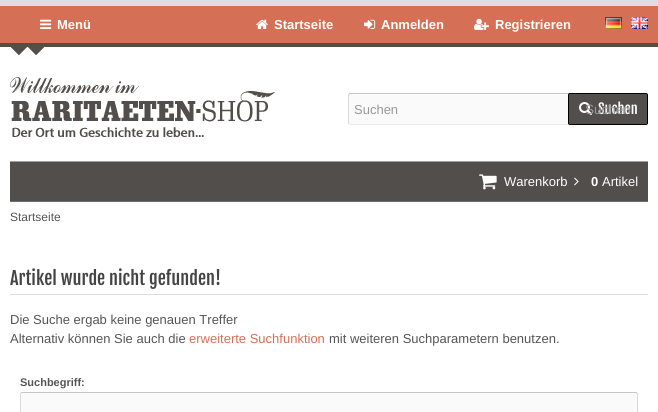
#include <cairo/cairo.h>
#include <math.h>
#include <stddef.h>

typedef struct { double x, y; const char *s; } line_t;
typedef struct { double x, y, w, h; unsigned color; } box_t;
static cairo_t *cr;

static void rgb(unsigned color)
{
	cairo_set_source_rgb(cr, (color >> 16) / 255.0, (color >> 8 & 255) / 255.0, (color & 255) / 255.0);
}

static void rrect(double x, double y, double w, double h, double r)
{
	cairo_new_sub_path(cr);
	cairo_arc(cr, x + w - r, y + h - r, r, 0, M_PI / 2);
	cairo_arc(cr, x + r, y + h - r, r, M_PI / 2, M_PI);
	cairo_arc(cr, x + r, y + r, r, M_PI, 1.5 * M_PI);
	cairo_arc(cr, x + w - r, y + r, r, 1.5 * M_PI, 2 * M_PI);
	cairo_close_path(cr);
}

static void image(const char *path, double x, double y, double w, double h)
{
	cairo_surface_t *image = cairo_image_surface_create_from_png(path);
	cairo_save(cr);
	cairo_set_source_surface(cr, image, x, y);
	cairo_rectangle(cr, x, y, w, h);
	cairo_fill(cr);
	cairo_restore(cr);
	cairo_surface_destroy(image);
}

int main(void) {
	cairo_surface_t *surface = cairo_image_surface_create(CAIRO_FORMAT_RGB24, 658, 412);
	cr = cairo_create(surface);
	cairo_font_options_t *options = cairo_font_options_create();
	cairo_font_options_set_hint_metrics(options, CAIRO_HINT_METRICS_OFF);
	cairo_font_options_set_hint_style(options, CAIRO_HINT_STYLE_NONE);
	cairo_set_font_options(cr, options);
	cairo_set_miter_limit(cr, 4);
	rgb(0xffffff);
	cairo_paint(cr);
	{
		static const box_t items[] = {
			{0, 6, 658, 37, 0xd56f56},
			{0, 0, 658, 6, 0xdedede},
			{0, 43, 658, 4, 0x524e4b},
		};
		for (size_t i = 0; i < sizeof items / sizeof *items; i++) {
			rgb(items[i].color);
			cairo_rectangle(cr, items[i].x, items[i].y, items[i].w, items[i].h);
			cairo_fill(cr);
		}
	}
	image("img/1.png", 40, 19, 12, 10);
	image("img/2.png", 256, 19, 12, 10);
	image("img/3.png", 364, 19, 12, 10);
	image("img/4.png", 474, 18, 15, 12);
	image("img/5.png", 605, 17, 17, 12);
	image("img/6.png", 631, 17, 17, 12);
	image("img/7.png", 10, 47, 265, 90);
	rgb(0xfafafa);
	rrect(348, 93, 300, 32, 2);
	cairo_fill(cr);
	cairo_new_path(cr);
	cairo_move_to(cr, 349, 94);
	cairo_line_to(cr, 350, 93.5);
	cairo_line_to(cr, 646, 93.5);
	cairo_line_to(cr, 647, 94);
	rgb(0xc6c6c6);
	cairo_set_line_width(cr, 1);
	cairo_stroke(cr);
	cairo_new_path(cr);
	cairo_move_to(cr, 647, 94);
	cairo_line_to(cr, 647.5, 95);
	cairo_line_to(cr, 647.5, 123);
	cairo_line_to(cr, 647, 124);
	rgb(0xdadada);
	cairo_stroke(cr);
	cairo_new_path(cr);
	cairo_move_to(cr, 647, 124);
	cairo_line_to(cr, 646, 124.5);
	cairo_line_to(cr, 350, 124.5);
	cairo_line_to(cr, 349, 124);
	rgb(0xeaeaea);
	cairo_stroke(cr);
	cairo_new_path(cr);
	cairo_move_to(cr, 349, 124);
	cairo_line_to(cr, 348.5, 123);
	cairo_line_to(cr, 348.5, 95);
	cairo_line_to(cr, 349, 94);
	rgb(0xdadada);
	cairo_stroke(cr);
	rgb(0x524e4b);
	rrect(568.5, 93.5, 79, 31, 1.5);
	cairo_fill_preserve(cr);
	rgb(0x000000);
	cairo_stroke(cr);
	image("img/8.png", 579, 102, 13, 13);
	rrect(569.5, 94.5, 77, 29, 1.5);
	rgb(0x524e4b);
	cairo_stroke(cr);
	{
		static const box_t items[] = {
			{10, 162, 638, 39, 0x524e4b},
			{10, 161, 638, 1, 0xa1a1a1},
			{10, 201, 638, 1, 0x6d6d6d},
		};
		for (size_t i = 0; i < sizeof items / sizeof *items; i++) {
			rgb(items[i].color);
			cairo_rectangle(cr, items[i].x, items[i].y, items[i].w, items[i].h);
			cairo_fill(cr);
		}
	}
	image("img/9.png", 479, 174, 18, 16);
	image("img/10.png", 574, 177, 5, 9);
	rgb(0xdddddd);
	cairo_rectangle(cr, 10, 294, 638, 1);
	cairo_fill(cr);
	rgb(0xfafafa);
	rrect(20, 392, 618, 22, 2);
	cairo_fill(cr);
	cairo_new_path(cr);
	cairo_move_to(cr, 21, 393);
	cairo_line_to(cr, 22, 392.5);
	cairo_line_to(cr, 636, 392.5);
	cairo_line_to(cr, 637, 393);
	rgb(0xc6c6c6);
	cairo_stroke(cr);
	cairo_new_path(cr);
	cairo_move_to(cr, 637, 393);
	cairo_line_to(cr, 637.5, 394);
	cairo_line_to(cr, 637.5, 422);
	cairo_line_to(cr, 637, 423);
	rgb(0xdadada);
	cairo_stroke(cr);
	cairo_new_path(cr);
	cairo_move_to(cr, 21, 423);
	cairo_line_to(cr, 20.5, 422);
	cairo_line_to(cr, 20.5, 394);
	cairo_line_to(cr, 21, 393);
	cairo_stroke(cr);
	cairo_select_font_face(cr, "Arimo", CAIRO_FONT_SLANT_NORMAL, CAIRO_FONT_WEIGHT_BOLD);
	cairo_set_font_size(cr, 13);
	rgb(0xffffff);
	{
		static const line_t items[] = {
			{57, 29, "Menü"},
			{274, 29, "Startseite"},
			{381, 29, "Anmelden"},
			{495, 29, "Registrieren"},
		};
		for (size_t i = 0; i < sizeof items / sizeof *items; i++) {
			cairo_move_to(cr, items[i].x, items[i].y);
			cairo_show_text(cr, items[i].s);
		}
	}
	cairo_select_font_face(cr, "Arimo", CAIRO_FONT_SLANT_NORMAL, CAIRO_FONT_WEIGHT_NORMAL);
	rgb(0x999999);
	cairo_move_to(cr, 354, 114);
	cairo_show_text(cr, "Suchen");
	cairo_select_font_face(cr, "Fjalla One", CAIRO_FONT_SLANT_NORMAL, CAIRO_FONT_WEIGHT_NORMAL);
	cairo_set_font_size(cr, 14);
	rgb(0xffffff);
	cairo_move_to(cr, 598, 114);
	cairo_show_text(cr, "Suchen");
	cairo_select_font_face(cr, "Liberation Sans", CAIRO_FONT_SLANT_NORMAL, CAIRO_FONT_WEIGHT_NORMAL);
	cairo_set_font_size(cr, 13.5);
	rgb(0x999999);
	cairo_move_to(cr, 585, 114);
	cairo_show_text(cr, "Suchen");
	cairo_select_font_face(cr, "Arimo", CAIRO_FONT_SLANT_NORMAL, CAIRO_FONT_WEIGHT_NORMAL);
	cairo_set_font_size(cr, 13);
	rgb(0xffffff);
	cairo_move_to(cr, 504, 186);
	cairo_show_text(cr, "Warenkorb");
	cairo_select_font_face(cr, "Arimo", CAIRO_FONT_SLANT_NORMAL, CAIRO_FONT_WEIGHT_BOLD);
	cairo_move_to(cr, 591, 186);
	cairo_show_text(cr, "0");
	cairo_select_font_face(cr, "Arimo", CAIRO_FONT_SLANT_NORMAL, CAIRO_FONT_WEIGHT_NORMAL);
	cairo_move_to(cr, 602, 186);
	cairo_show_text(cr, "Artikel");
	cairo_set_font_size(cr, 12);
	rgb(0x555555);
	cairo_move_to(cr, 10, 221);
	cairo_show_text(cr, "Startseite");
	cairo_select_font_face(cr, "Fjalla One", CAIRO_FONT_SLANT_NORMAL, CAIRO_FONT_WEIGHT_NORMAL);
	cairo_set_font_size(cr, 18);
	rgb(0x444444);
	cairo_move_to(cr, 10, 285);
	cairo_show_text(cr, "Artikel wurde nicht gefunden!");
	cairo_select_font_face(cr, "Arimo", CAIRO_FONT_SLANT_NORMAL, CAIRO_FONT_WEIGHT_NORMAL);
	cairo_set_font_size(cr, 13);
	rgb(0x555555);
	cairo_move_to(cr, 10, 324);
	cairo_show_text(cr, "Die Suche ergab keine genauen Treffer");
	cairo_move_to(cr, 10, 343);
	cairo_show_text(cr, "Alternativ können Sie auch die");
	rgb(0xd56f56);
	cairo_move_to(cr, 189, 343);
	cairo_show_text(cr, "erweiterte Suchfunktion");
	rgb(0x555555);
	cairo_move_to(cr, 329, 343);
	cairo_show_text(cr, "mit weiteren Suchparametern benutzen.");
	cairo_select_font_face(cr, "Arimo", CAIRO_FONT_SLANT_NORMAL, CAIRO_FONT_WEIGHT_BOLD);
	cairo_set_font_size(cr, 11);
	cairo_move_to(cr, 20, 386);
	cairo_show_text(cr, "Suchbegriff:");
	cairo_surface_write_to_png(surface, "page.png");
	cairo_font_options_destroy(options);
	cairo_destroy(cr);
	cairo_surface_destroy(surface);
	return 0;
}
